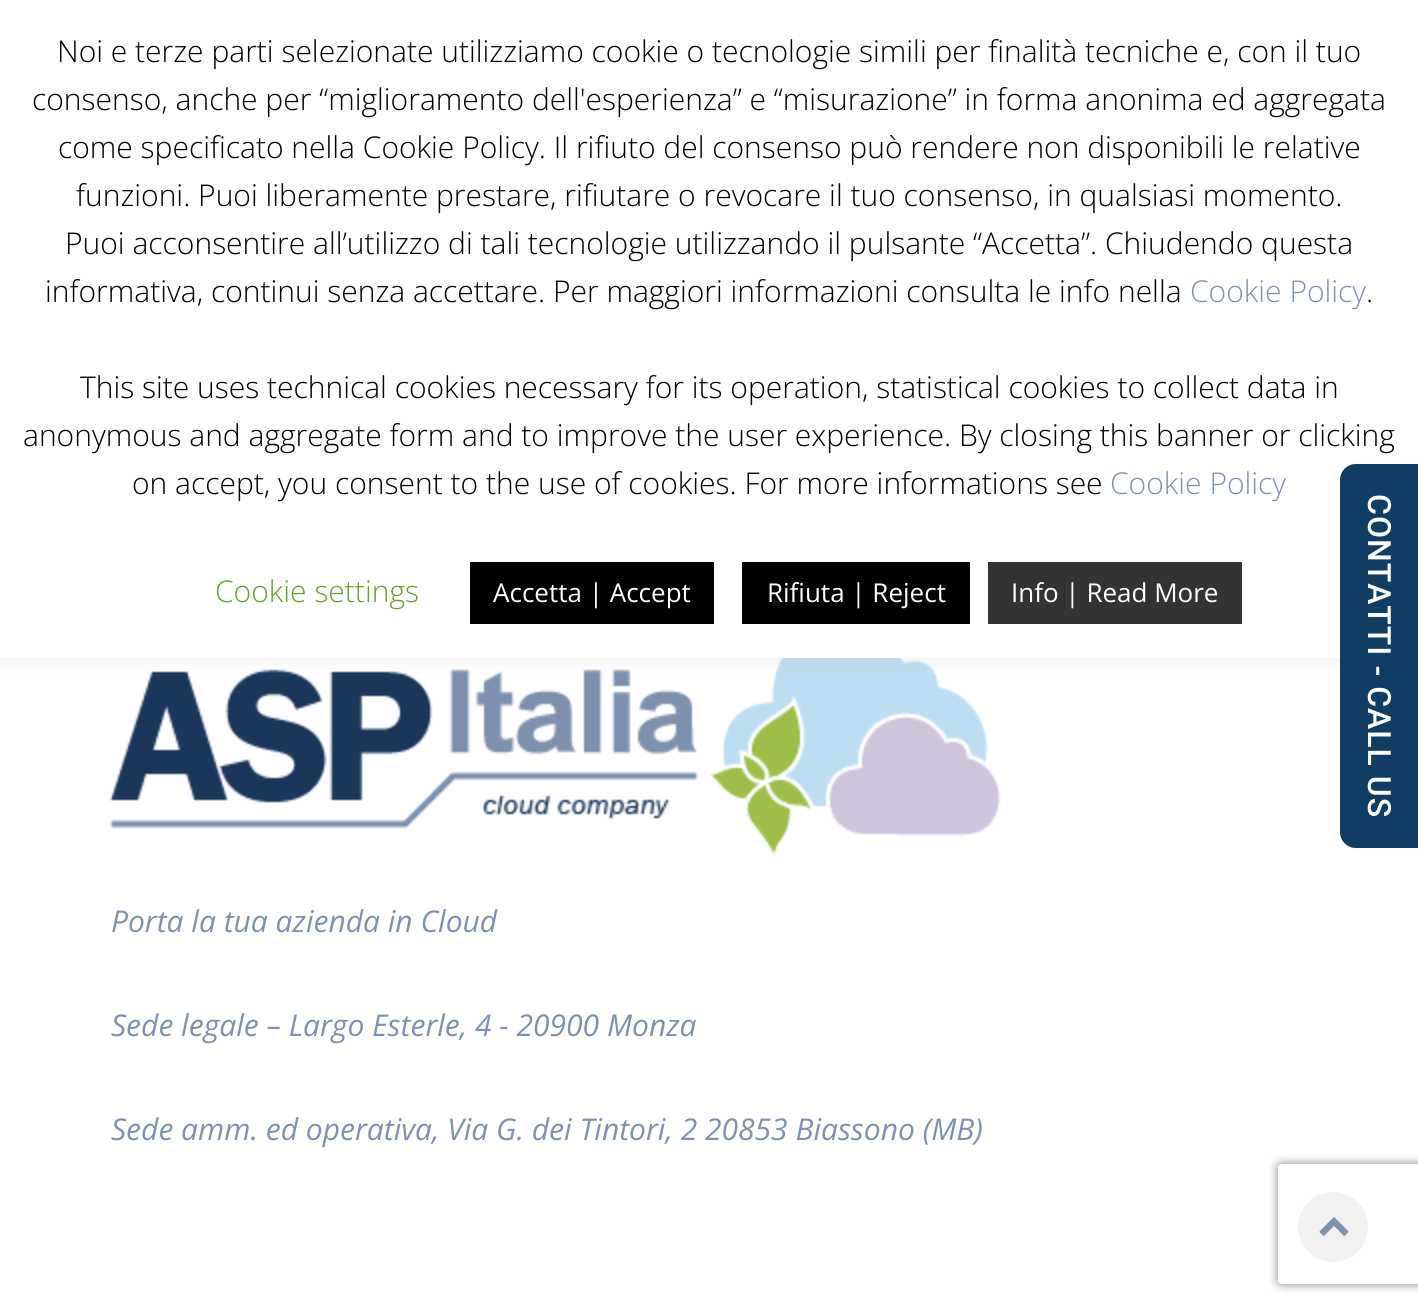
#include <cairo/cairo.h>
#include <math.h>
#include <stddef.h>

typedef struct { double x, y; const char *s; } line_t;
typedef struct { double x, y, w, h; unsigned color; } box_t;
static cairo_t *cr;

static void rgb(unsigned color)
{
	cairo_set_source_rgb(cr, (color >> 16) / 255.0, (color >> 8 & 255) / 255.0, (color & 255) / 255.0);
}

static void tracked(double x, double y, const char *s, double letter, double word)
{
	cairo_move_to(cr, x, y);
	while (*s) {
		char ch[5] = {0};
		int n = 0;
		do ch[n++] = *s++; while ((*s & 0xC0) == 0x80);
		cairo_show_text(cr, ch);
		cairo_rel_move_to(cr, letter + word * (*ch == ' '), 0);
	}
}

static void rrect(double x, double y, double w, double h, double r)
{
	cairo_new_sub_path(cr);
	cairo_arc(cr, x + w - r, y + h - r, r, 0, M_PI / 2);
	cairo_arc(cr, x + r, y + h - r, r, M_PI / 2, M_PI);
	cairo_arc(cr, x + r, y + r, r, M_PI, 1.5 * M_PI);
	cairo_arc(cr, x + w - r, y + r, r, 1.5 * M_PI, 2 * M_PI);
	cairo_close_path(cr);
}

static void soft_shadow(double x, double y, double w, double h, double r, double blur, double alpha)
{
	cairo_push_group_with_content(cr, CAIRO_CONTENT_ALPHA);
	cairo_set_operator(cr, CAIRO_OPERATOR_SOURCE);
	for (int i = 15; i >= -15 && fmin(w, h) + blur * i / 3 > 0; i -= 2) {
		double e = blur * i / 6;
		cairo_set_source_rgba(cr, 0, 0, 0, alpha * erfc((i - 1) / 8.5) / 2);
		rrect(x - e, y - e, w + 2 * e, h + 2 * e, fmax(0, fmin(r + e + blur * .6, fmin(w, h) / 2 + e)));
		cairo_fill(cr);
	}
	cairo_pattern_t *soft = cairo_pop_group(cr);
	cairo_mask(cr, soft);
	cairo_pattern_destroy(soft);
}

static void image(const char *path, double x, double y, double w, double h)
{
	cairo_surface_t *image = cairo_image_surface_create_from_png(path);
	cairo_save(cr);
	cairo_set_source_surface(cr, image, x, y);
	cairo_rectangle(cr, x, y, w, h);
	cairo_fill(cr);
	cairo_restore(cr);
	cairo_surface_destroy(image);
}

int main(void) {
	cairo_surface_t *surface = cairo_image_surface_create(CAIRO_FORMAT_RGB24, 1418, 1311);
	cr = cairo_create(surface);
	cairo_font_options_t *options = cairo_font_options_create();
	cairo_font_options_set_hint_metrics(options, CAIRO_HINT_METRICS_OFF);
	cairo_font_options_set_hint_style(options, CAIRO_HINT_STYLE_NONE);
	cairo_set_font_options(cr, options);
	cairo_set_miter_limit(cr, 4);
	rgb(0xffffff);
	cairo_paint(cr);
	image("img/1.png", 110, 658, 891, 197);
	rgb(0xacabab);
	soft_shadow(0, -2, 1418, 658, 0, 10, 0.3);
	{
		static const box_t items[] = {
			{0, 0, 1418, 658, 0xffffff},
			{470, 562, 244, 62, 0x000000},
			{742, 562, 228, 62, 0x000000},
			{988, 562, 254, 62, 0x333333},
		};
		for (size_t i = 0; i < sizeof items / sizeof *items; i++) {
			rgb(items[i].color);
			cairo_rectangle(cr, items[i].x, items[i].y, items[i].w, items[i].h);
			cairo_fill(cr);
		}
	}
	rgb(0x103d64);
	cairo_new_path(cr);
	cairo_move_to(cr, 1418, 464);
	cairo_line_to(cr, 1418, 848);
	cairo_line_to(cr, 1356, 848);
	cairo_curve_to(cr, 1347, 848, 1340, 841, 1340, 832);
	cairo_line_to(cr, 1340, 480);
	cairo_curve_to(cr, 1340, 471, 1347, 464, 1356, 464);
	cairo_close_path(cr);
	cairo_fill(cr);
	cairo_save(cr);
	cairo_set_fill_rule(cr, CAIRO_FILL_RULE_EVEN_ODD);
	cairo_new_path(cr);
	cairo_move_to(cr, 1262, 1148);
	cairo_line_to(cr, 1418, 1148);
	cairo_line_to(cr, 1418, 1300);
	cairo_line_to(cr, 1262, 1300);
	cairo_close_path(cr);
	cairo_move_to(cr, 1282, 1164);
	cairo_line_to(cr, 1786, 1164);
	cairo_curve_to(cr, 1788, 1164, 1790, 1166, 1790, 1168);
	cairo_line_to(cr, 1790, 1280);
	cairo_curve_to(cr, 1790, 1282, 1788, 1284, 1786, 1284);
	cairo_line_to(cr, 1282, 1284);
	cairo_curve_to(cr, 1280, 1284, 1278, 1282, 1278, 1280);
	cairo_line_to(cr, 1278, 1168);
	cairo_curve_to(cr, 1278, 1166, 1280, 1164, 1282, 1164);
	cairo_close_path(cr);
	cairo_clip(cr);
	rgb(0x808080);
	soft_shadow(1278, 1164, 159, 120, 4, 5, 1);
	cairo_restore(cr);
	rgb(0xf1f1f1);
	cairo_arc(cr, 1333, 1227, 35, 0, 2 * M_PI);
	cairo_fill(cr);
	image("img/2.png", 1319, 1217, 30, 19);
	cairo_select_font_face(cr, "Open Sans Light", CAIRO_FONT_SLANT_NORMAL, CAIRO_FONT_WEIGHT_NORMAL);
	cairo_set_font_size(cr, 30);
	rgb(0x000000);
	{
		static const line_t items[] = {
			{57, 62, "Noi e terze parti selezionate utilizziamo cookie o tecnologie simili per finalità tecniche e, con il tuo"},
			{32, 110, "consenso, anche per “miglioramento dell'esperienza” e “misurazione” in forma anonima ed aggregata"},
			{58, 158, "come specificato nella Cookie Policy. Il rifiuto del consenso può rendere non disponibili le relative"},
			{76, 206, "funzioni. Puoi liberamente prestare, rifiutare o revocare il tuo consenso, in qualsiasi momento."},
			{65, 254, "Puoi acconsentire all’utilizzo di tali tecnologie utilizzando il pulsante “Accetta”. Chiudendo questa"},
			{45, 302, "informativa, continui senza accettare. Per maggiori informazioni consulta le info nella"},
		};
		for (size_t i = 0; i < sizeof items / sizeof *items; i++) {
			cairo_move_to(cr, items[i].x, items[i].y);
			cairo_show_text(cr, items[i].s);
		}
	}
	rgb(0x7e91b1);
	cairo_move_to(cr, 1190, 302);
	cairo_show_text(cr, "Cookie Policy");
	rgb(0x000000);
	{
		static const line_t items[] = {
			{1366, 302, "."},
			{80, 398, "This site uses technical cookies necessary for its operation, statistical cookies to collect data in"},
			{23, 446, "anonymous and aggregate form and to improve the user experience. By closing this banner or clicking"},
			{132, 494, "on accept, you consent to the use of cookies. For more informations see"},
		};
		for (size_t i = 0; i < sizeof items / sizeof *items; i++) {
			cairo_move_to(cr, items[i].x, items[i].y);
			cairo_show_text(cr, items[i].s);
		}
	}
	rgb(0x7e91b1);
	cairo_move_to(cr, 1110, 494);
	cairo_show_text(cr, "Cookie Policy");
	rgb(0x62a329);
	cairo_move_to(cr, 215, 602);
	cairo_show_text(cr, "Cookie settings");
	cairo_select_font_face(cr, "Open Sans", CAIRO_FONT_SLANT_NORMAL, CAIRO_FONT_WEIGHT_NORMAL);
	cairo_set_font_size(cr, 26);
	rgb(0xffffff);
	{
		static const line_t items[] = {
			{493, 602, "Accetta | Accept"},
			{767, 602, "Rifiuta | Reject"},
			{1011, 602, "Info | Read More"},
		};
		for (size_t i = 0; i < sizeof items / sizeof *items; i++) {
			cairo_move_to(cr, items[i].x, items[i].y);
			cairo_show_text(cr, items[i].s);
		}
	}
	cairo_select_font_face(cr, "Roboto Medium", CAIRO_FONT_SLANT_NORMAL, CAIRO_FONT_WEIGHT_NORMAL);
	cairo_set_font_size(cr, 32);
	cairo_save(cr);
	cairo_translate(cr, 1368, 494);
	cairo_rotate(cr, 90 * M_PI / 180);
	tracked(0, 0, "CONTATTI - CALL US", 1, 0);
	cairo_restore(cr);
	cairo_select_font_face(cr, "Open Sans", CAIRO_FONT_SLANT_ITALIC, CAIRO_FONT_WEIGHT_NORMAL);
	cairo_set_font_size(cr, 30);
	rgb(0x7e91b1);
	{
		static const line_t items[] = {
			{111, 932, "Porta la tua azienda in Cloud"},
			{111, 1036, "Sede legale – Largo Esterle, 4 - 20900 Monza"},
			{111, 1140, "Sede amm. ed operativa, Via G. dei Tintori, 2 20853 Biassono (MB)"},
		};
		for (size_t i = 0; i < sizeof items / sizeof *items; i++) {
			cairo_move_to(cr, items[i].x, items[i].y);
			cairo_show_text(cr, items[i].s);
		}
	}
	cairo_surface_write_to_png(surface, "page.png");
	cairo_font_options_destroy(options);
	cairo_destroy(cr);
	cairo_surface_destroy(surface);
	return 0;
}
